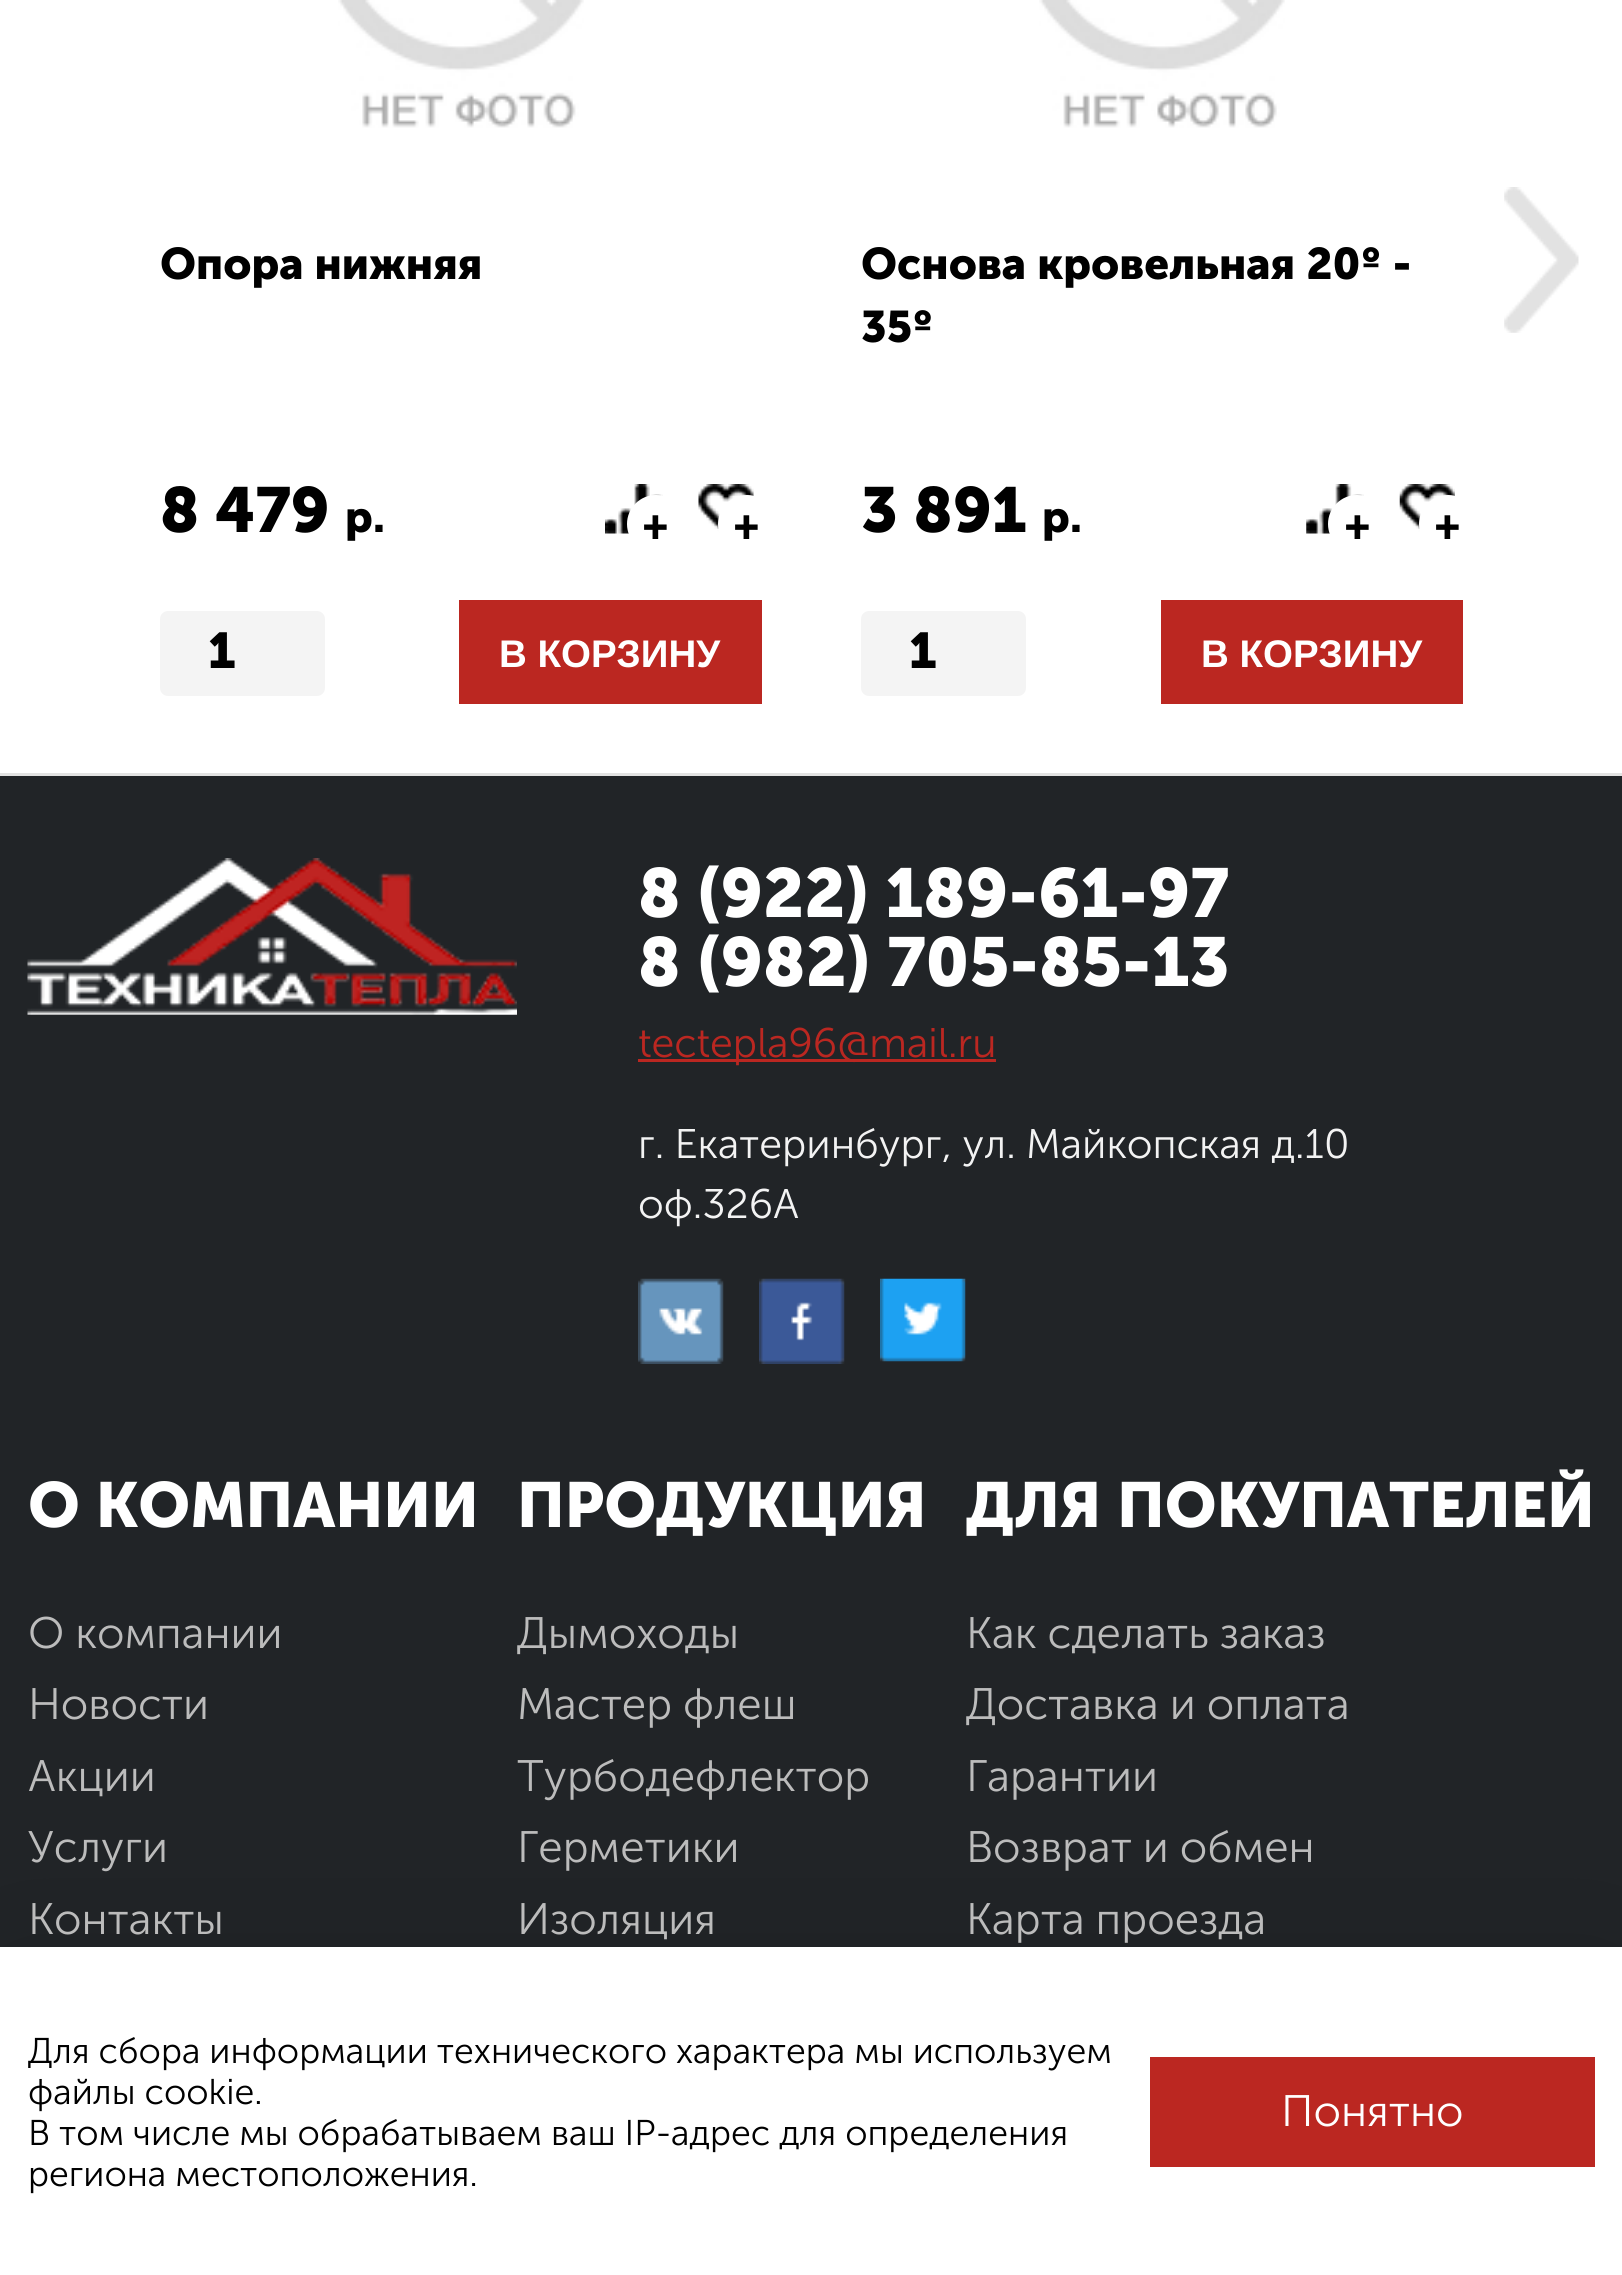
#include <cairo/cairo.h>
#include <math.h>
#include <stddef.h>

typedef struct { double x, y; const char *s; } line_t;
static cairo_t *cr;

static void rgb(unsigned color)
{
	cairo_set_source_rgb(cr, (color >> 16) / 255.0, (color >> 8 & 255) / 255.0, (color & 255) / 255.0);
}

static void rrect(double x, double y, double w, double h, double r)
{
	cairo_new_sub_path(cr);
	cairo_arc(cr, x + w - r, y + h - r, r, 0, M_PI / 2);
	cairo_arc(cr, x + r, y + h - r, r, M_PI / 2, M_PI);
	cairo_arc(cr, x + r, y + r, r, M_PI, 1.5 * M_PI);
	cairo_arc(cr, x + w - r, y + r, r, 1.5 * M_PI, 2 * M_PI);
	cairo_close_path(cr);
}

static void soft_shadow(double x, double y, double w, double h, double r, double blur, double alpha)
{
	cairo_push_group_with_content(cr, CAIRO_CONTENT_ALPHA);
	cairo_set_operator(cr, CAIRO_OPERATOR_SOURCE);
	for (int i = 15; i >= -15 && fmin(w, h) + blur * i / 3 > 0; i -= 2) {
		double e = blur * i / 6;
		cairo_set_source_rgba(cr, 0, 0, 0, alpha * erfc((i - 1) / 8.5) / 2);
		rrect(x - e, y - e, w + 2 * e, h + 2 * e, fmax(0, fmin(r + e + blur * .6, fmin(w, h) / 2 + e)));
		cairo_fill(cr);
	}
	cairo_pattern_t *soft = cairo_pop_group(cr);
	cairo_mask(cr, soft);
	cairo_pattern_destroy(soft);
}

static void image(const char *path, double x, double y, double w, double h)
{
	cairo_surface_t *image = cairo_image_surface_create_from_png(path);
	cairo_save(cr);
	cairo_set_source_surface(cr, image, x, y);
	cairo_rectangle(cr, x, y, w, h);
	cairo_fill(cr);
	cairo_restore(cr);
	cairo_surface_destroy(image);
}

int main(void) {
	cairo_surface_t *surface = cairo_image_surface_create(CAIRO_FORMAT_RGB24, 1622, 2275);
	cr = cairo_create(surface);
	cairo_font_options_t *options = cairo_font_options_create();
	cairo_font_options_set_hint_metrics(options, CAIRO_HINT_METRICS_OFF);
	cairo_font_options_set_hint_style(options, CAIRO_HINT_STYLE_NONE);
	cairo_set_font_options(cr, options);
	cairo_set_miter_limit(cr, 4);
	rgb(0xffffff);
	cairo_paint(cr);
	image("img/1.png", 338, 0, 246, 128);
	image("img/2.png", 605, 484, 58, 50);
	rgb(0xffffff);
	cairo_arc(cr, 656, 524, 29, 0, 2 * M_PI);
	cairo_fill(cr);
	image("img/3.png", 698, 484, 56, 49);
	cairo_arc(cr, 747, 524, 29, 0, 2 * M_PI);
	cairo_fill(cr);
	rgb(0xf4f4f4);
	rrect(160, 611, 165, 85, 8);
	cairo_fill(cr);
	rgb(0xbb2721);
	cairo_rectangle(cr, 459, 600, 303, 104);
	cairo_fill(cr);
	image("img/4.png", 1039, 0, 246, 128);
	image("img/5.png", 1306, 484, 58, 50);
	rgb(0xffffff);
	cairo_arc(cr, 1357, 524, 29, 0, 2 * M_PI);
	cairo_fill(cr);
	image("img/6.png", 1399, 484, 56, 48);
	cairo_arc(cr, 1448, 524, 29, 0, 2 * M_PI);
	cairo_fill(cr);
	rgb(0xf4f4f4);
	rrect(861, 611, 165, 85, 8);
	cairo_fill(cr);
	rgb(0xbb2721);
	cairo_rectangle(cr, 1161, 600, 302, 104);
	cairo_fill(cr);
	image("img/7.png", 1504, 187, 75, 146);
	rgb(0x212427);
	cairo_rectangle(cr, 0, 776, 1622, 1171);
	cairo_fill(cr);
	rgb(0xe2e2e2);
	cairo_rectangle(cr, 0, 773, 1622, 3);
	cairo_fill(cr);
	image("img/8.png", 27, 858, 490, 157);
	rgb(0xbb2721);
	cairo_rectangle(cr, 638, 1059, 358, 3);
	cairo_fill(cr);
	image("img/9.png", 638, 1278, 86, 86);
	image("img/10.png", 759, 1278, 86, 86);
	image("img/11.png", 880, 1278, 86, 84);
	rgb(0x000000);
	soft_shadow(0, 1975, 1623, 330, 0, 82.5, 0.15);
	rgb(0xffffff);
	cairo_rectangle(cr, 0, 1947, 1622, 328);
	cairo_fill(cr);
	rgb(0xbb2721);
	cairo_rectangle(cr, 1150, 2057, 445, 110);
	cairo_fill(cr);
	cairo_select_font_face(cr, "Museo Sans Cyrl", CAIRO_FONT_SLANT_NORMAL, CAIRO_FONT_WEIGHT_BOLD);
	cairo_set_font_size(cr, 44);
	rgb(0x000000);
	cairo_move_to(cr, 160, 279);
	cairo_show_text(cr, "Опора нижняя");
	cairo_set_font_size(cr, 63.25);
	cairo_move_to(cr, 160, 532);
	cairo_show_text(cr, "8 479");
	cairo_set_font_size(cr, 44);
	cairo_move_to(cr, 345, 532);
	cairo_show_text(cr, "р.");
	cairo_set_font_size(cr, 41.25);
	cairo_move_to(cr, 643, 539);
	cairo_show_text(cr, "+");
	cairo_move_to(cr, 734, 539);
	cairo_show_text(cr, "+");
	cairo_set_font_size(cr, 50);
	cairo_move_to(cr, 208, 668);
	cairo_show_text(cr, "1");
	cairo_select_font_face(cr, "Liberation Sans", CAIRO_FONT_SLANT_NORMAL, CAIRO_FONT_WEIGHT_BOLD);
	cairo_set_font_size(cr, 38.5);
	rgb(0xffffff);
	cairo_move_to(cr, 499, 667);
	cairo_show_text(cr, "В КОРЗИНУ");
	cairo_select_font_face(cr, "Museo Sans Cyrl", CAIRO_FONT_SLANT_NORMAL, CAIRO_FONT_WEIGHT_BOLD);
	cairo_set_font_size(cr, 44);
	rgb(0x000000);
	cairo_move_to(cr, 861, 279);
	cairo_show_text(cr, "Основа кровельная 20º -");
	cairo_move_to(cr, 861, 342);
	cairo_show_text(cr, "35º");
	cairo_set_font_size(cr, 63.25);
	cairo_move_to(cr, 861, 532);
	cairo_show_text(cr, "3 891");
	cairo_set_font_size(cr, 44);
	cairo_move_to(cr, 1042, 532);
	cairo_show_text(cr, "р.");
	cairo_set_font_size(cr, 41.25);
	cairo_move_to(cr, 1345, 539);
	cairo_show_text(cr, "+");
	cairo_move_to(cr, 1435, 539);
	cairo_show_text(cr, "+");
	cairo_set_font_size(cr, 50);
	cairo_move_to(cr, 909, 668);
	cairo_show_text(cr, "1");
	cairo_select_font_face(cr, "Liberation Sans", CAIRO_FONT_SLANT_NORMAL, CAIRO_FONT_WEIGHT_BOLD);
	cairo_set_font_size(cr, 38.5);
	rgb(0xffffff);
	cairo_move_to(cr, 1201, 667);
	cairo_show_text(cr, "В КОРЗИНУ");
	cairo_select_font_face(cr, "Museo Sans Cyrl", CAIRO_FONT_SLANT_NORMAL, CAIRO_FONT_WEIGHT_BOLD);
	cairo_set_font_size(cr, 68.75);
	cairo_move_to(cr, 638, 917);
	cairo_show_text(cr, "8 (922) 189-61-97");
	cairo_move_to(cr, 638, 986);
	cairo_show_text(cr, "8 (982) 705-85-13");
	cairo_select_font_face(cr, "Museo Sans Cyrl Light", CAIRO_FONT_SLANT_NORMAL, CAIRO_FONT_WEIGHT_NORMAL);
	cairo_set_font_size(cr, 41.25);
	rgb(0xbb2721);
	cairo_move_to(cr, 638, 1057);
	cairo_show_text(cr, "tectepla96@mail.ru");
	rgb(0xf3f3f3);
	cairo_move_to(cr, 638, 1158);
	cairo_show_text(cr, "г. Екатеринбург, ул. Майкопская д.10");
	cairo_move_to(cr, 638, 1218);
	cairo_show_text(cr, "оф.326А");
	cairo_select_font_face(cr, "Museo Sans Cyrl", CAIRO_FONT_SLANT_NORMAL, CAIRO_FONT_WEIGHT_BOLD);
	cairo_set_font_size(cr, 63.25);
	rgb(0xffffff);
	cairo_move_to(cr, 28, 1527);
	cairo_show_text(cr, "О КОМПАНИИ");
	cairo_select_font_face(cr, "Museo Sans Cyrl Light", CAIRO_FONT_SLANT_NORMAL, CAIRO_FONT_WEIGHT_NORMAL);
	cairo_set_font_size(cr, 44);
	rgb(0xbcbcbc);
	{
		static const line_t items[] = {
			{28, 1648, "О компании"},
			{28, 1719, "Новости"},
			{28, 1791, "Акции"},
			{28, 1862, "Услуги"},
			{28, 1934, "Контакты"},
		};
		for (size_t i = 0; i < sizeof items / sizeof *items; i++) {
			cairo_move_to(cr, items[i].x, items[i].y);
			cairo_show_text(cr, items[i].s);
		}
	}
	cairo_select_font_face(cr, "Museo Sans Cyrl", CAIRO_FONT_SLANT_NORMAL, CAIRO_FONT_WEIGHT_BOLD);
	cairo_set_font_size(cr, 63.25);
	rgb(0xffffff);
	cairo_move_to(cr, 517, 1527);
	cairo_show_text(cr, "ПРОДУКЦИЯ");
	cairo_select_font_face(cr, "Museo Sans Cyrl Light", CAIRO_FONT_SLANT_NORMAL, CAIRO_FONT_WEIGHT_NORMAL);
	cairo_set_font_size(cr, 44);
	rgb(0xbcbcbc);
	{
		static const line_t items[] = {
			{517, 1648, "Дымоходы"},
			{517, 1719, "Мастер флеш"},
			{517, 1791, "Турбодефлектор"},
			{517, 1862, "Герметики"},
			{517, 1934, "Изоляция"},
		};
		for (size_t i = 0; i < sizeof items / sizeof *items; i++) {
			cairo_move_to(cr, items[i].x, items[i].y);
			cairo_show_text(cr, items[i].s);
		}
	}
	cairo_select_font_face(cr, "Museo Sans Cyrl", CAIRO_FONT_SLANT_NORMAL, CAIRO_FONT_WEIGHT_BOLD);
	cairo_set_font_size(cr, 63.25);
	rgb(0xffffff);
	cairo_move_to(cr, 966, 1527);
	cairo_show_text(cr, "ДЛЯ ПОКУПАТЕЛЕЙ");
	cairo_select_font_face(cr, "Museo Sans Cyrl Light", CAIRO_FONT_SLANT_NORMAL, CAIRO_FONT_WEIGHT_NORMAL);
	cairo_set_font_size(cr, 44);
	rgb(0xbcbcbc);
	{
		static const line_t items[] = {
			{966, 1648, "Как сделать заказ"},
			{966, 1719, "Доставка и оплата"},
			{966, 1791, "Гарантии"},
			{966, 1862, "Возврат и обмен"},
			{966, 1934, "Карта проезда"},
		};
		for (size_t i = 0; i < sizeof items / sizeof *items; i++) {
			cairo_move_to(cr, items[i].x, items[i].y);
			cairo_show_text(cr, items[i].s);
		}
	}
	cairo_set_font_size(cr, 35.75);
	rgb(0x000000);
	{
		static const line_t items[] = {
			{28, 2063, "Для сбора информации технического характера мы используем"},
			{28, 2104, "файлы cookie."},
			{28, 2145, "В том числе мы обрабатываем ваш IP-адрес для определения"},
			{28, 2186, "региона местоположения."},
		};
		for (size_t i = 0; i < sizeof items / sizeof *items; i++) {
			cairo_move_to(cr, items[i].x, items[i].y);
			cairo_show_text(cr, items[i].s);
		}
	}
	cairo_set_font_size(cr, 44);
	rgb(0xffffff);
	cairo_move_to(cr, 1281, 2126);
	cairo_show_text(cr, "Понятно");
	cairo_surface_write_to_png(surface, "page.png");
	cairo_font_options_destroy(options);
	cairo_destroy(cr);
	cairo_surface_destroy(surface);
	return 0;
}
